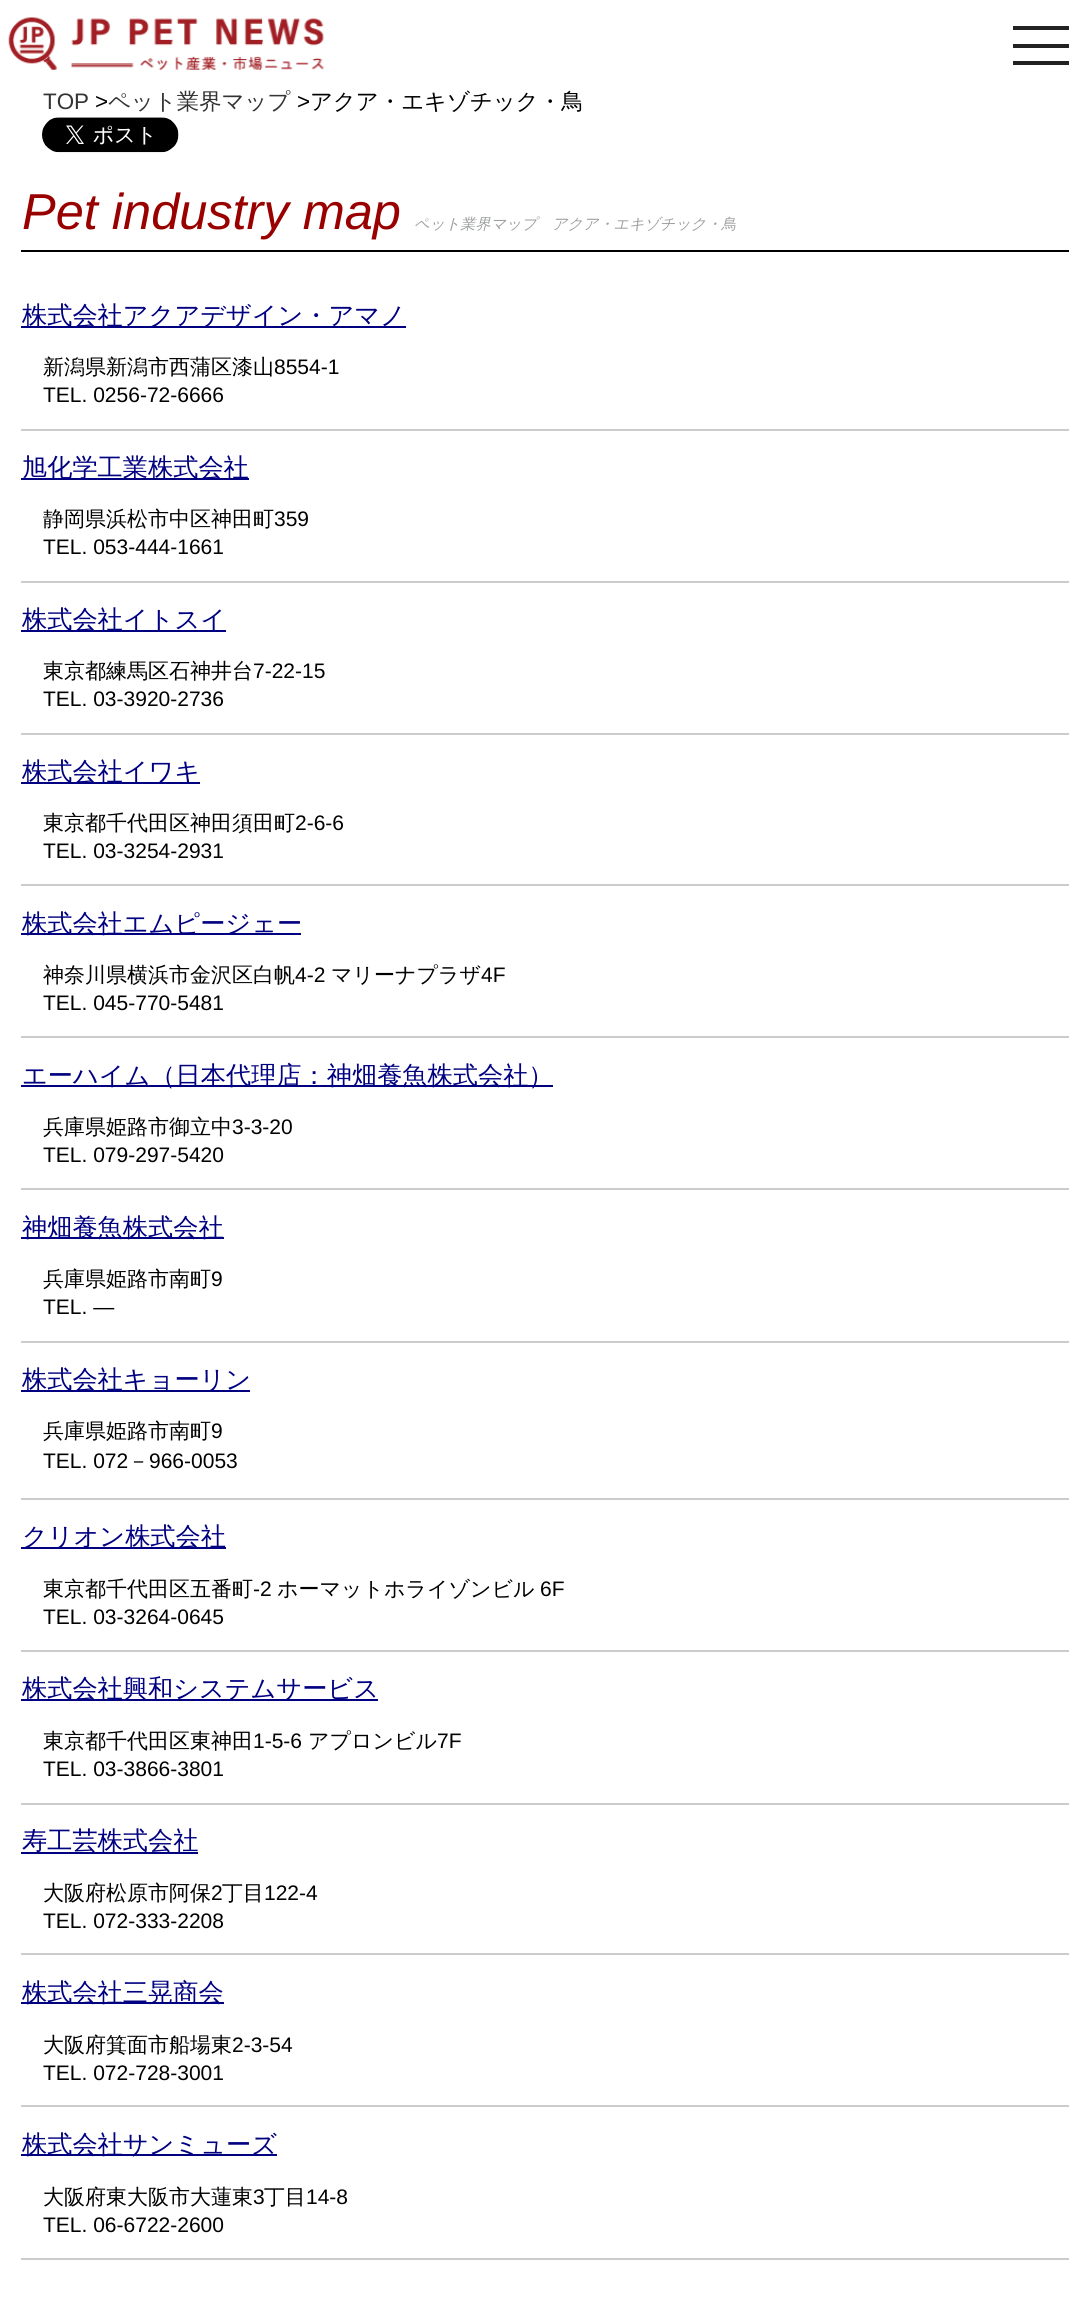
#include <cairo/cairo.h>
#include <math.h>
#include <stddef.h>

typedef struct { double x, y, w, h; unsigned color; } box_t;
static cairo_t *cr;

static void rgb(unsigned color)
{
	cairo_set_source_rgb(cr, (color >> 16) / 255.0, (color >> 8 & 255) / 255.0, (color & 255) / 255.0);
}

static void image(const char *path, double x, double y, double w, double h)
{
	cairo_surface_t *image = cairo_image_surface_create_from_png(path);
	cairo_save(cr);
	cairo_set_source_surface(cr, image, x, y);
	cairo_rectangle(cr, x, y, w, h);
	cairo_fill(cr);
	cairo_restore(cr);
	cairo_surface_destroy(image);
}

int main(void) {
	cairo_surface_t *surface = cairo_image_surface_create(CAIRO_FORMAT_RGB24, 1089, 2298);
	cr = cairo_create(surface);
	cairo_font_options_t *options = cairo_font_options_create();
	cairo_font_options_set_hint_metrics(options, CAIRO_HINT_METRICS_OFF);
	cairo_font_options_set_hint_style(options, CAIRO_HINT_STYLE_NONE);
	cairo_set_font_options(cr, options);
	cairo_set_miter_limit(cr, 4);
	rgb(0xffffff);
	cairo_paint(cr);
	image("img/1.png", 8, 17, 316, 53);
	{
		static const box_t items[] = {
			{1013, 44, 56, 4, 0x222222},
			{1013, 26, 56, 4, 0x222222},
			{1013, 61, 56, 4, 0x222222},
		};
		for (size_t i = 0; i < sizeof items / sizeof *items; i++) {
			rgb(items[i].color);
			cairo_rectangle(cr, items[i].x, items[i].y, items[i].w, items[i].h);
			cairo_fill(cr);
		}
	}
	image("img/2.png", 42, 117, 137, 36);
	{
		static const box_t items[] = {
			{21, 250, 1048, 2, 0x000000},
			{21, 326, 385, 2, 0x000080},
			{21, 429, 1048, 2, 0xcccccc},
			{21, 478, 228, 2, 0x000080},
			{21, 581, 1048, 2, 0xcccccc},
			{21, 630, 205, 2, 0x000080},
			{21, 733, 1048, 2, 0xcccccc},
			{21, 782, 179, 2, 0x000080},
			{21, 884, 1048, 2, 0xcccccc},
			{21, 933, 280, 2, 0x000080},
			{21, 1036, 1048, 2, 0xcccccc},
			{21, 1085, 532, 2, 0x000080},
			{21, 1188, 1048, 2, 0xcccccc},
			{21, 1237, 203, 2, 0x000080},
			{21, 1341, 1048, 2, 0xcccccc},
			{21, 1390, 229, 2, 0x000080},
			{21, 1498, 1048, 2, 0xcccccc},
			{21, 1547, 205, 2, 0x000080},
			{21, 1650, 1048, 2, 0xcccccc},
			{21, 1699, 357, 2, 0x000080},
			{21, 1803, 1048, 2, 0xcccccc},
			{21, 1852, 177, 2, 0x000080},
			{21, 1953, 1048, 2, 0xcccccc},
			{21, 2002, 203, 2, 0x000080},
			{21, 2105, 1048, 2, 0xcccccc},
			{21, 2154, 256, 2, 0x000080},
			{21, 2258, 1048, 2, 0xcccccc},
		};
		for (size_t i = 0; i < sizeof items / sizeof *items; i++) {
			rgb(items[i].color);
			cairo_rectangle(cr, items[i].x, items[i].y, items[i].w, items[i].h);
			cairo_fill(cr);
		}
	}
	cairo_select_font_face(cr, "Liberation Sans", CAIRO_FONT_SLANT_NORMAL, CAIRO_FONT_WEIGHT_NORMAL);
	cairo_set_font_size(cr, 22.4);
	rgb(0x333333);
	cairo_move_to(cr, 43, 109);
	cairo_show_text(cr, "TOP");
	rgb(0x000000);
	cairo_move_to(cr, 95, 109);
	cairo_show_text(cr, ">");
	cairo_select_font_face(cr, "WenQuanYi Zen Hei Medium", CAIRO_FONT_SLANT_NORMAL, CAIRO_FONT_WEIGHT_NORMAL);
	rgb(0x333333);
	cairo_move_to(cr, 108, 109);
	cairo_show_text(cr, "ペット業界マップ");
	cairo_select_font_face(cr, "Liberation Sans", CAIRO_FONT_SLANT_NORMAL, CAIRO_FONT_WEIGHT_NORMAL);
	rgb(0x000000);
	cairo_move_to(cr, 297, 109);
	cairo_show_text(cr, ">");
	cairo_select_font_face(cr, "WenQuanYi Zen Hei Medium", CAIRO_FONT_SLANT_NORMAL, CAIRO_FONT_WEIGHT_NORMAL);
	cairo_move_to(cr, 310, 109);
	cairo_show_text(cr, "アクア・エキゾチック・鳥");
	cairo_select_font_face(cr, "Liberation Sans", CAIRO_FONT_SLANT_ITALIC, CAIRO_FONT_WEIGHT_NORMAL);
	cairo_set_font_size(cr, 50.5);
	rgb(0x990000);
	cairo_move_to(cr, 22, 229);
	cairo_show_text(cr, "Pet industry map");
	cairo_select_font_face(cr, "WenQuanYi Zen Hei Medium", CAIRO_FONT_SLANT_ITALIC, CAIRO_FONT_WEIGHT_NORMAL);
	cairo_set_font_size(cr, 15.1);
	rgb(0x9fa0a0);
	cairo_move_to(cr, 414, 229);
	cairo_show_text(cr, "ペット業界マップ　アクア・エキゾチック・鳥");
	cairo_select_font_face(cr, "WenQuanYi Zen Hei Medium", CAIRO_FONT_SLANT_NORMAL, CAIRO_FONT_WEIGHT_NORMAL);
	cairo_set_font_size(cr, 25.2);
	rgb(0x000080);
	cairo_move_to(cr, 22, 324);
	cairo_show_text(cr, "株式会社アクアデザイン・アマノ");
	cairo_set_font_size(cr, 21);
	rgb(0x000000);
	cairo_move_to(cr, 43, 374);
	cairo_show_text(cr, "新潟県新潟市西蒲区漆山");
	cairo_select_font_face(cr, "Liberation Sans", CAIRO_FONT_SLANT_NORMAL, CAIRO_FONT_WEIGHT_NORMAL);
	cairo_move_to(cr, 274, 374);
	cairo_show_text(cr, "8554-1");
	cairo_move_to(cr, 43, 402);
	cairo_show_text(cr, "TEL. 0256-72-6666");
	cairo_select_font_face(cr, "WenQuanYi Zen Hei Medium", CAIRO_FONT_SLANT_NORMAL, CAIRO_FONT_WEIGHT_NORMAL);
	cairo_set_font_size(cr, 25.2);
	rgb(0x000080);
	cairo_move_to(cr, 22, 476);
	cairo_show_text(cr, "旭化学工業株式会社");
	cairo_set_font_size(cr, 21);
	rgb(0x000000);
	cairo_move_to(cr, 43, 526);
	cairo_show_text(cr, "静岡県浜松市中区神田町");
	cairo_select_font_face(cr, "Liberation Sans", CAIRO_FONT_SLANT_NORMAL, CAIRO_FONT_WEIGHT_NORMAL);
	cairo_move_to(cr, 274, 526);
	cairo_show_text(cr, "359");
	cairo_move_to(cr, 43, 554);
	cairo_show_text(cr, "TEL. 053-444-1661");
	cairo_select_font_face(cr, "WenQuanYi Zen Hei Medium", CAIRO_FONT_SLANT_NORMAL, CAIRO_FONT_WEIGHT_NORMAL);
	cairo_set_font_size(cr, 25.2);
	rgb(0x000080);
	cairo_move_to(cr, 22, 628);
	cairo_show_text(cr, "株式会社イトスイ");
	cairo_set_font_size(cr, 21);
	rgb(0x000000);
	cairo_move_to(cr, 43, 678);
	cairo_show_text(cr, "東京都練馬区石神井台");
	cairo_select_font_face(cr, "Liberation Sans", CAIRO_FONT_SLANT_NORMAL, CAIRO_FONT_WEIGHT_NORMAL);
	cairo_move_to(cr, 253, 678);
	cairo_show_text(cr, "7-22-15");
	cairo_move_to(cr, 43, 706);
	cairo_show_text(cr, "TEL. 03-3920-2736");
	cairo_select_font_face(cr, "WenQuanYi Zen Hei Medium", CAIRO_FONT_SLANT_NORMAL, CAIRO_FONT_WEIGHT_NORMAL);
	cairo_set_font_size(cr, 25.2);
	rgb(0x000080);
	cairo_move_to(cr, 22, 780);
	cairo_show_text(cr, "株式会社イワキ");
	cairo_set_font_size(cr, 21);
	rgb(0x000000);
	cairo_move_to(cr, 43, 830);
	cairo_show_text(cr, "東京都千代田区神田須田町");
	cairo_select_font_face(cr, "Liberation Sans", CAIRO_FONT_SLANT_NORMAL, CAIRO_FONT_WEIGHT_NORMAL);
	cairo_move_to(cr, 295, 830);
	cairo_show_text(cr, "2-6-6");
	cairo_move_to(cr, 43, 858);
	cairo_show_text(cr, "TEL. 03-3254-2931");
	cairo_select_font_face(cr, "WenQuanYi Zen Hei Medium", CAIRO_FONT_SLANT_NORMAL, CAIRO_FONT_WEIGHT_NORMAL);
	cairo_set_font_size(cr, 25.2);
	rgb(0x000080);
	cairo_move_to(cr, 22, 932);
	cairo_show_text(cr, "株式会社エムピージェー");
	cairo_set_font_size(cr, 21);
	rgb(0x000000);
	cairo_move_to(cr, 43, 982);
	cairo_show_text(cr, "神奈川県横浜市金沢区白帆");
	cairo_select_font_face(cr, "Liberation Sans", CAIRO_FONT_SLANT_NORMAL, CAIRO_FONT_WEIGHT_NORMAL);
	cairo_move_to(cr, 295, 982);
	cairo_show_text(cr, "4-2");
	cairo_select_font_face(cr, "WenQuanYi Zen Hei Medium", CAIRO_FONT_SLANT_NORMAL, CAIRO_FONT_WEIGHT_NORMAL);
	cairo_move_to(cr, 331, 982);
	cairo_show_text(cr, "マリーナプラザ");
	cairo_select_font_face(cr, "Liberation Sans", CAIRO_FONT_SLANT_NORMAL, CAIRO_FONT_WEIGHT_NORMAL);
	cairo_move_to(cr, 481, 982);
	cairo_show_text(cr, "4F");
	cairo_move_to(cr, 43, 1010);
	cairo_show_text(cr, "TEL. 045-770-5481");
	cairo_select_font_face(cr, "WenQuanYi Zen Hei Medium", CAIRO_FONT_SLANT_NORMAL, CAIRO_FONT_WEIGHT_NORMAL);
	cairo_set_font_size(cr, 25.2);
	rgb(0x000080);
	cairo_move_to(cr, 22, 1084);
	cairo_show_text(cr, "エーハイム（日本代理店：神畑養魚株式会社）");
	cairo_set_font_size(cr, 21);
	rgb(0x000000);
	cairo_move_to(cr, 43, 1134);
	cairo_show_text(cr, "兵庫県姫路市御立中");
	cairo_select_font_face(cr, "Liberation Sans", CAIRO_FONT_SLANT_NORMAL, CAIRO_FONT_WEIGHT_NORMAL);
	cairo_move_to(cr, 232, 1134);
	cairo_show_text(cr, "3-3-20");
	cairo_move_to(cr, 43, 1162);
	cairo_show_text(cr, "TEL. 079-297-5420");
	cairo_select_font_face(cr, "WenQuanYi Zen Hei Medium", CAIRO_FONT_SLANT_NORMAL, CAIRO_FONT_WEIGHT_NORMAL);
	cairo_set_font_size(cr, 25.2);
	rgb(0x000080);
	cairo_move_to(cr, 22, 1236);
	cairo_show_text(cr, "神畑養魚株式会社");
	cairo_set_font_size(cr, 21);
	rgb(0x000000);
	cairo_move_to(cr, 43, 1286);
	cairo_show_text(cr, "兵庫県姫路市南町");
	cairo_select_font_face(cr, "Liberation Sans", CAIRO_FONT_SLANT_NORMAL, CAIRO_FONT_WEIGHT_NORMAL);
	cairo_move_to(cr, 211, 1286);
	cairo_show_text(cr, "9");
	cairo_move_to(cr, 43, 1314);
	cairo_show_text(cr, "TEL. —");
	cairo_select_font_face(cr, "WenQuanYi Zen Hei Medium", CAIRO_FONT_SLANT_NORMAL, CAIRO_FONT_WEIGHT_NORMAL);
	cairo_set_font_size(cr, 25.2);
	rgb(0x000080);
	cairo_move_to(cr, 22, 1388);
	cairo_show_text(cr, "株式会社キョーリン");
	cairo_set_font_size(cr, 21);
	rgb(0x000000);
	cairo_move_to(cr, 43, 1438);
	cairo_show_text(cr, "兵庫県姫路市南町");
	cairo_select_font_face(cr, "Liberation Sans", CAIRO_FONT_SLANT_NORMAL, CAIRO_FONT_WEIGHT_NORMAL);
	cairo_move_to(cr, 211, 1438);
	cairo_show_text(cr, "9");
	cairo_move_to(cr, 43, 1468);
	cairo_show_text(cr, "TEL. 072");
	cairo_select_font_face(cr, "WenQuanYi Zen Hei Medium", CAIRO_FONT_SLANT_NORMAL, CAIRO_FONT_WEIGHT_NORMAL);
	cairo_move_to(cr, 128, 1468);
	cairo_show_text(cr, "－");
	cairo_select_font_face(cr, "Liberation Sans", CAIRO_FONT_SLANT_NORMAL, CAIRO_FONT_WEIGHT_NORMAL);
	cairo_move_to(cr, 149, 1468);
	cairo_show_text(cr, "966-0053");
	cairo_select_font_face(cr, "WenQuanYi Zen Hei Medium", CAIRO_FONT_SLANT_NORMAL, CAIRO_FONT_WEIGHT_NORMAL);
	cairo_set_font_size(cr, 25.2);
	rgb(0x000080);
	cairo_move_to(cr, 22, 1545);
	cairo_show_text(cr, "クリオン株式会社");
	cairo_set_font_size(cr, 21);
	rgb(0x000000);
	cairo_move_to(cr, 43, 1596);
	cairo_show_text(cr, "東京都千代田区五番町");
	cairo_select_font_face(cr, "Liberation Sans", CAIRO_FONT_SLANT_NORMAL, CAIRO_FONT_WEIGHT_NORMAL);
	cairo_move_to(cr, 253, 1596);
	cairo_show_text(cr, "-2");
	cairo_select_font_face(cr, "WenQuanYi Zen Hei Medium", CAIRO_FONT_SLANT_NORMAL, CAIRO_FONT_WEIGHT_NORMAL);
	cairo_move_to(cr, 277, 1596);
	cairo_show_text(cr, "ホーマットホライゾンビル");
	cairo_select_font_face(cr, "Liberation Sans", CAIRO_FONT_SLANT_NORMAL, CAIRO_FONT_WEIGHT_NORMAL);
	cairo_move_to(cr, 540, 1596);
	cairo_show_text(cr, "6F");
	cairo_move_to(cr, 43, 1624);
	cairo_show_text(cr, "TEL. 03-3264-0645");
	cairo_select_font_face(cr, "WenQuanYi Zen Hei Medium", CAIRO_FONT_SLANT_NORMAL, CAIRO_FONT_WEIGHT_NORMAL);
	cairo_set_font_size(cr, 25.2);
	rgb(0x000080);
	cairo_move_to(cr, 22, 1697);
	cairo_show_text(cr, "株式会社興和システムサービス");
	cairo_set_font_size(cr, 21);
	rgb(0x000000);
	cairo_move_to(cr, 43, 1748);
	cairo_show_text(cr, "東京都千代田区東神田");
	cairo_select_font_face(cr, "Liberation Sans", CAIRO_FONT_SLANT_NORMAL, CAIRO_FONT_WEIGHT_NORMAL);
	cairo_move_to(cr, 253, 1748);
	cairo_show_text(cr, "1-5-6");
	cairo_select_font_face(cr, "WenQuanYi Zen Hei Medium", CAIRO_FONT_SLANT_NORMAL, CAIRO_FONT_WEIGHT_NORMAL);
	cairo_move_to(cr, 308, 1748);
	cairo_show_text(cr, "アプロンビル");
	cairo_select_font_face(cr, "Liberation Sans", CAIRO_FONT_SLANT_NORMAL, CAIRO_FONT_WEIGHT_NORMAL);
	cairo_move_to(cr, 437, 1748);
	cairo_show_text(cr, "7F");
	cairo_move_to(cr, 43, 1776);
	cairo_show_text(cr, "TEL. 03-3866-3801");
	cairo_select_font_face(cr, "WenQuanYi Zen Hei Medium", CAIRO_FONT_SLANT_NORMAL, CAIRO_FONT_WEIGHT_NORMAL);
	cairo_set_font_size(cr, 25.2);
	rgb(0x000080);
	cairo_move_to(cr, 22, 1849);
	cairo_show_text(cr, "寿工芸株式会社");
	cairo_set_font_size(cr, 21);
	rgb(0x000000);
	cairo_move_to(cr, 43, 1900);
	cairo_show_text(cr, "大阪府松原市阿保");
	cairo_select_font_face(cr, "Liberation Sans", CAIRO_FONT_SLANT_NORMAL, CAIRO_FONT_WEIGHT_NORMAL);
	cairo_move_to(cr, 211, 1900);
	cairo_show_text(cr, "2");
	cairo_select_font_face(cr, "WenQuanYi Zen Hei Medium", CAIRO_FONT_SLANT_NORMAL, CAIRO_FONT_WEIGHT_NORMAL);
	cairo_move_to(cr, 222, 1900);
	cairo_show_text(cr, "丁目");
	cairo_select_font_face(cr, "Liberation Sans", CAIRO_FONT_SLANT_NORMAL, CAIRO_FONT_WEIGHT_NORMAL);
	cairo_move_to(cr, 264, 1900);
	cairo_show_text(cr, "122-4");
	cairo_move_to(cr, 43, 1928);
	cairo_show_text(cr, "TEL. 072-333-2208");
	cairo_select_font_face(cr, "WenQuanYi Zen Hei Medium", CAIRO_FONT_SLANT_NORMAL, CAIRO_FONT_WEIGHT_NORMAL);
	cairo_set_font_size(cr, 25.2);
	rgb(0x000080);
	cairo_move_to(cr, 22, 2001);
	cairo_show_text(cr, "株式会社三晃商会");
	cairo_set_font_size(cr, 21);
	rgb(0x000000);
	cairo_move_to(cr, 43, 2052);
	cairo_show_text(cr, "大阪府箕面市船場東");
	cairo_select_font_face(cr, "Liberation Sans", CAIRO_FONT_SLANT_NORMAL, CAIRO_FONT_WEIGHT_NORMAL);
	cairo_move_to(cr, 232, 2052);
	cairo_show_text(cr, "2-3-54");
	cairo_move_to(cr, 43, 2080);
	cairo_show_text(cr, "TEL. 072-728-3001");
	cairo_select_font_face(cr, "WenQuanYi Zen Hei Medium", CAIRO_FONT_SLANT_NORMAL, CAIRO_FONT_WEIGHT_NORMAL);
	cairo_set_font_size(cr, 25.2);
	rgb(0x000080);
	cairo_move_to(cr, 22, 2153);
	cairo_show_text(cr, "株式会社サンミューズ");
	cairo_set_font_size(cr, 21);
	rgb(0x000000);
	cairo_move_to(cr, 43, 2204);
	cairo_show_text(cr, "大阪府東大阪市大蓮東");
	cairo_select_font_face(cr, "Liberation Sans", CAIRO_FONT_SLANT_NORMAL, CAIRO_FONT_WEIGHT_NORMAL);
	cairo_move_to(cr, 253, 2204);
	cairo_show_text(cr, "3");
	cairo_select_font_face(cr, "WenQuanYi Zen Hei Medium", CAIRO_FONT_SLANT_NORMAL, CAIRO_FONT_WEIGHT_NORMAL);
	cairo_move_to(cr, 264, 2204);
	cairo_show_text(cr, "丁目");
	cairo_select_font_face(cr, "Liberation Sans", CAIRO_FONT_SLANT_NORMAL, CAIRO_FONT_WEIGHT_NORMAL);
	cairo_move_to(cr, 306, 2204);
	cairo_show_text(cr, "14-8");
	cairo_move_to(cr, 43, 2232);
	cairo_show_text(cr, "TEL. 06-6722-2600");
	cairo_surface_write_to_png(surface, "page.png");
	cairo_font_options_destroy(options);
	cairo_destroy(cr);
	cairo_surface_destroy(surface);
	return 0;
}
